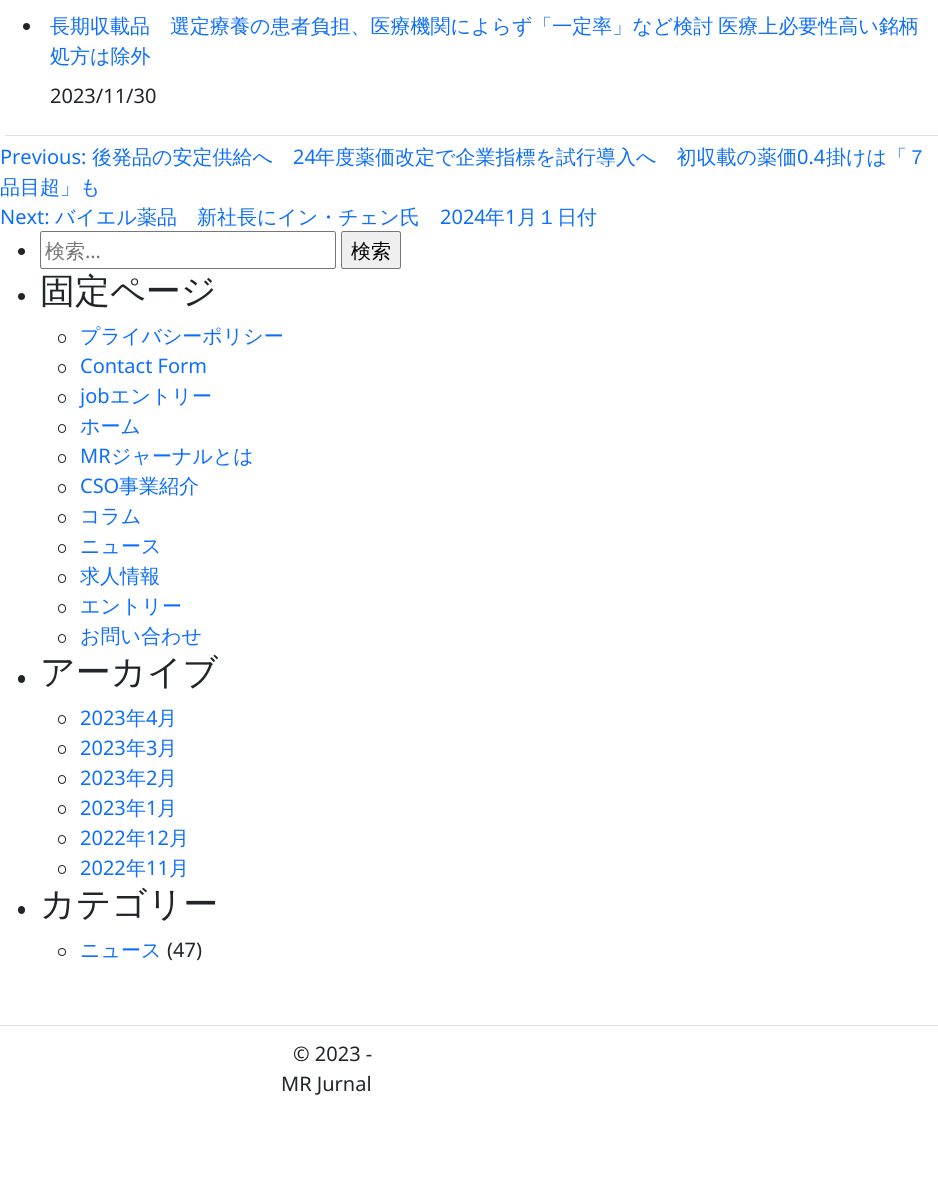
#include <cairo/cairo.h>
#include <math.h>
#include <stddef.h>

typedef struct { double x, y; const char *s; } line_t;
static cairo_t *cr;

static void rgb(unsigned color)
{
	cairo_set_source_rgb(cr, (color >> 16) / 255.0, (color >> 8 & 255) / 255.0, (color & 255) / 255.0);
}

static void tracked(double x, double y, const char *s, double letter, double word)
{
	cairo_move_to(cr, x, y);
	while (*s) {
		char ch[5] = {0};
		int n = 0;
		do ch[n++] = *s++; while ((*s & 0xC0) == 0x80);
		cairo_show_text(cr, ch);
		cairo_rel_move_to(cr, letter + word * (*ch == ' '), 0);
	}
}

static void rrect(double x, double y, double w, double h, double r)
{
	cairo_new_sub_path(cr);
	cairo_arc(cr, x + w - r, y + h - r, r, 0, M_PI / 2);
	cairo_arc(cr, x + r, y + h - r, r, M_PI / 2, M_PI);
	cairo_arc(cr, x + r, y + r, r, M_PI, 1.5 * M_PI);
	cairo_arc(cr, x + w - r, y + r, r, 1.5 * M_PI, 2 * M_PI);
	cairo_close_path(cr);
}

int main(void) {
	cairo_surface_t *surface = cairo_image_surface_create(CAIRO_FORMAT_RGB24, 938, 1181);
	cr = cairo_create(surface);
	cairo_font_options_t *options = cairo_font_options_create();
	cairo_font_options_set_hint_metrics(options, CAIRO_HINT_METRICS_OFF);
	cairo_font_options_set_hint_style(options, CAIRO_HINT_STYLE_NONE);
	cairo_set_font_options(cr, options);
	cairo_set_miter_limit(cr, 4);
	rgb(0xffffff);
	cairo_paint(cr);
	rgb(0xdee2e6);
	cairo_rectangle(cr, 5, 135, 933, 1);
	cairo_fill(cr);
	rgb(0x212529);
	cairo_arc(cr, 26.5, 26.5, 3.5, 0, 2 * M_PI);
	cairo_fill(cr);
	cairo_arc(cr, 21.5, 251.5, 3.5, 0, 2 * M_PI);
	cairo_fill(cr);
	rrect(40.5, 231.5, 295, 37, 2);
	rgb(0x767676);
	cairo_set_line_width(cr, 1);
	cairo_stroke(cr);
	rgb(0xefefef);
	rrect(341.5, 231.5, 59, 37, 2);
	cairo_fill_preserve(cr);
	rgb(0x767676);
	cairo_stroke(cr);
	rgb(0x212529);
	cairo_arc(cr, 21.5, 296.5, 3.5, 0, 2 * M_PI);
	cairo_fill(cr);
	rrect(58.5, 334.5, 7, 8, 3.5);
	cairo_stroke(cr);
	rrect(58.5, 364.5, 7, 8, 3.5);
	cairo_stroke(cr);
	rrect(58.5, 394.5, 7, 8, 3.5);
	cairo_stroke(cr);
	rrect(58.5, 424.5, 7, 8, 3.5);
	cairo_stroke(cr);
	rrect(58.5, 454.5, 7, 8, 3.5);
	cairo_stroke(cr);
	rrect(58.5, 484.5, 7, 8, 3.5);
	cairo_stroke(cr);
	rrect(58.5, 514.5, 7, 8, 3.5);
	cairo_stroke(cr);
	rrect(58.5, 544.5, 7, 8, 3.5);
	cairo_stroke(cr);
	rrect(58.5, 574.5, 7, 8, 3.5);
	cairo_stroke(cr);
	rrect(58.5, 604.5, 7, 8, 3.5);
	cairo_stroke(cr);
	rrect(58.5, 634.5, 7, 8, 3.5);
	cairo_stroke(cr);
	rrect(18, 675, 7, 8, 3.5);
	cairo_fill(cr);
	rrect(58.5, 715.5, 7, 8, 3.5);
	cairo_stroke(cr);
	rrect(58.5, 745.5, 7, 8, 3.5);
	cairo_stroke(cr);
	rrect(58.5, 775.5, 7, 8, 3.5);
	cairo_stroke(cr);
	rrect(58.5, 805.5, 7, 8, 3.5);
	cairo_stroke(cr);
	rrect(58.5, 835.5, 7, 8, 3.5);
	cairo_stroke(cr);
	rrect(58.5, 865.5, 7, 8, 3.5);
	cairo_stroke(cr);
	rrect(18, 906, 7, 8, 3.5);
	cairo_fill(cr);
	cairo_arc(cr, 62, 952, 3.5, 0, 2 * M_PI);
	cairo_stroke(cr);
	rgb(0xdee2e6);
	cairo_rectangle(cr, 0, 1025, 938, 1);
	cairo_fill(cr);
	cairo_select_font_face(cr, "WenQuanYi Zen Hei Medium", CAIRO_FONT_SLANT_NORMAL, CAIRO_FONT_WEIGHT_NORMAL);
	cairo_set_font_size(cr, 20);
	rgb(0x0d6efd);
	tracked(50, 33, "長期収載品　選定療養の患者負担、医療機関によらず「一定率」など検討 医療上必要性高い銘柄", 0, -1);
	cairo_move_to(cr, 50, 63);
	cairo_show_text(cr, "処方は除外");
	cairo_select_font_face(cr, "Noto Sans", CAIRO_FONT_SLANT_NORMAL, CAIRO_FONT_WEIGHT_NORMAL);
	rgb(0x212529);
	cairo_move_to(cr, 50, 103);
	cairo_show_text(cr, "2023/11/30");
	rgb(0x0d6efd);
	cairo_move_to(cr, 0, 164);
	cairo_show_text(cr, "Previous:");
	cairo_select_font_face(cr, "WenQuanYi Zen Hei Medium", CAIRO_FONT_SLANT_NORMAL, CAIRO_FONT_WEIGHT_NORMAL);
	cairo_move_to(cr, 92, 164);
	cairo_show_text(cr, "後発品の安定供給へ");
	cairo_select_font_face(cr, "Noto Sans", CAIRO_FONT_SLANT_NORMAL, CAIRO_FONT_WEIGHT_NORMAL);
	cairo_move_to(cr, 293, 164);
	cairo_show_text(cr, "24");
	cairo_select_font_face(cr, "WenQuanYi Zen Hei Medium", CAIRO_FONT_SLANT_NORMAL, CAIRO_FONT_WEIGHT_NORMAL);
	cairo_move_to(cr, 315, 164);
	cairo_show_text(cr, "年度薬価改定で企業指標を試行導入へ　初収載の薬価");
	cairo_select_font_face(cr, "Noto Sans", CAIRO_FONT_SLANT_NORMAL, CAIRO_FONT_WEIGHT_NORMAL);
	cairo_move_to(cr, 797, 164);
	cairo_show_text(cr, "0.4");
	cairo_select_font_face(cr, "WenQuanYi Zen Hei Medium", CAIRO_FONT_SLANT_NORMAL, CAIRO_FONT_WEIGHT_NORMAL);
	cairo_move_to(cr, 826, 164);
	cairo_show_text(cr, "掛けは「７");
	cairo_move_to(cr, 0, 194);
	cairo_show_text(cr, "品目超」も");
	cairo_select_font_face(cr, "Noto Sans", CAIRO_FONT_SLANT_NORMAL, CAIRO_FONT_WEIGHT_NORMAL);
	cairo_move_to(cr, 0, 224);
	cairo_show_text(cr, "Next:");
	cairo_select_font_face(cr, "WenQuanYi Zen Hei Medium", CAIRO_FONT_SLANT_NORMAL, CAIRO_FONT_WEIGHT_NORMAL);
	cairo_move_to(cr, 55, 224);
	cairo_show_text(cr, "バイエル薬品　新社長にイン・チェン氏");
	cairo_select_font_face(cr, "Noto Sans", CAIRO_FONT_SLANT_NORMAL, CAIRO_FONT_WEIGHT_NORMAL);
	cairo_move_to(cr, 440, 224);
	cairo_show_text(cr, "2024");
	cairo_select_font_face(cr, "WenQuanYi Zen Hei Medium", CAIRO_FONT_SLANT_NORMAL, CAIRO_FONT_WEIGHT_NORMAL);
	cairo_move_to(cr, 485, 224);
	cairo_show_text(cr, "年");
	cairo_select_font_face(cr, "Noto Sans", CAIRO_FONT_SLANT_NORMAL, CAIRO_FONT_WEIGHT_NORMAL);
	cairo_move_to(cr, 505, 224);
	cairo_show_text(cr, "1");
	cairo_select_font_face(cr, "WenQuanYi Zen Hei Medium", CAIRO_FONT_SLANT_NORMAL, CAIRO_FONT_WEIGHT_NORMAL);
	cairo_move_to(cr, 517, 224);
	cairo_show_text(cr, "月１日付");
	rgb(0x757575);
	cairo_move_to(cr, 45, 258);
	cairo_show_text(cr, "検索");
	cairo_select_font_face(cr, "Noto Sans", CAIRO_FONT_SLANT_NORMAL, CAIRO_FONT_WEIGHT_NORMAL);
	cairo_move_to(cr, 85, 258);
	cairo_show_text(cr, "…");
	cairo_select_font_face(cr, "WenQuanYi Zen Hei Medium", CAIRO_FONT_SLANT_NORMAL, CAIRO_FONT_WEIGHT_NORMAL);
	rgb(0x000000);
	cairo_move_to(cr, 351, 258);
	cairo_show_text(cr, "検索");
	cairo_set_font_size(cr, 35);
	rgb(0x212529);
	cairo_move_to(cr, 40, 303);
	cairo_show_text(cr, "固定ページ");
	cairo_set_font_size(cr, 20);
	rgb(0x0d6efd);
	cairo_move_to(cr, 80, 343);
	cairo_show_text(cr, "プライバシーポリシー");
	cairo_select_font_face(cr, "Noto Sans", CAIRO_FONT_SLANT_NORMAL, CAIRO_FONT_WEIGHT_NORMAL);
	cairo_move_to(cr, 80, 373);
	cairo_show_text(cr, "Contact Form");
	cairo_move_to(cr, 80, 403);
	cairo_show_text(cr, "job");
	cairo_select_font_face(cr, "WenQuanYi Zen Hei Medium", CAIRO_FONT_SLANT_NORMAL, CAIRO_FONT_WEIGHT_NORMAL);
	cairo_move_to(cr, 110, 403);
	cairo_show_text(cr, "エントリー");
	cairo_move_to(cr, 80, 433);
	cairo_show_text(cr, "ホーム");
	cairo_select_font_face(cr, "Noto Sans", CAIRO_FONT_SLANT_NORMAL, CAIRO_FONT_WEIGHT_NORMAL);
	cairo_move_to(cr, 80, 463);
	cairo_show_text(cr, "MR");
	cairo_select_font_face(cr, "WenQuanYi Zen Hei Medium", CAIRO_FONT_SLANT_NORMAL, CAIRO_FONT_WEIGHT_NORMAL);
	cairo_move_to(cr, 111, 463);
	cairo_show_text(cr, "ジャーナルとは");
	cairo_select_font_face(cr, "Noto Sans", CAIRO_FONT_SLANT_NORMAL, CAIRO_FONT_WEIGHT_NORMAL);
	cairo_move_to(cr, 80, 493);
	cairo_show_text(cr, "CSO");
	cairo_select_font_face(cr, "WenQuanYi Zen Hei Medium", CAIRO_FONT_SLANT_NORMAL, CAIRO_FONT_WEIGHT_NORMAL);
	{
		static const line_t items[] = {
			{119, 493, "事業紹介"},
			{80, 523, "コラム"},
			{80, 553, "ニュース"},
			{80, 583, "求人情報"},
			{80, 613, "エントリー"},
			{80, 643, "お問い合わせ"},
		};
		for (size_t i = 0; i < sizeof items / sizeof *items; i++) {
			cairo_move_to(cr, items[i].x, items[i].y);
			cairo_show_text(cr, items[i].s);
		}
	}
	cairo_set_font_size(cr, 35);
	rgb(0x212529);
	cairo_move_to(cr, 40, 684);
	cairo_show_text(cr, "アーカイブ");
	cairo_select_font_face(cr, "Noto Sans", CAIRO_FONT_SLANT_NORMAL, CAIRO_FONT_WEIGHT_NORMAL);
	cairo_set_font_size(cr, 20);
	rgb(0x0d6efd);
	cairo_move_to(cr, 80, 725);
	cairo_show_text(cr, "2023");
	cairo_select_font_face(cr, "WenQuanYi Zen Hei Medium", CAIRO_FONT_SLANT_NORMAL, CAIRO_FONT_WEIGHT_NORMAL);
	cairo_move_to(cr, 126, 725);
	cairo_show_text(cr, "年");
	cairo_select_font_face(cr, "Noto Sans", CAIRO_FONT_SLANT_NORMAL, CAIRO_FONT_WEIGHT_NORMAL);
	cairo_move_to(cr, 146, 725);
	cairo_show_text(cr, "4");
	cairo_select_font_face(cr, "WenQuanYi Zen Hei Medium", CAIRO_FONT_SLANT_NORMAL, CAIRO_FONT_WEIGHT_NORMAL);
	cairo_move_to(cr, 157, 725);
	cairo_show_text(cr, "月");
	cairo_select_font_face(cr, "Noto Sans", CAIRO_FONT_SLANT_NORMAL, CAIRO_FONT_WEIGHT_NORMAL);
	cairo_move_to(cr, 80, 755);
	cairo_show_text(cr, "2023");
	cairo_select_font_face(cr, "WenQuanYi Zen Hei Medium", CAIRO_FONT_SLANT_NORMAL, CAIRO_FONT_WEIGHT_NORMAL);
	cairo_move_to(cr, 126, 755);
	cairo_show_text(cr, "年");
	cairo_select_font_face(cr, "Noto Sans", CAIRO_FONT_SLANT_NORMAL, CAIRO_FONT_WEIGHT_NORMAL);
	cairo_move_to(cr, 146, 755);
	cairo_show_text(cr, "3");
	cairo_select_font_face(cr, "WenQuanYi Zen Hei Medium", CAIRO_FONT_SLANT_NORMAL, CAIRO_FONT_WEIGHT_NORMAL);
	cairo_move_to(cr, 157, 755);
	cairo_show_text(cr, "月");
	cairo_select_font_face(cr, "Noto Sans", CAIRO_FONT_SLANT_NORMAL, CAIRO_FONT_WEIGHT_NORMAL);
	cairo_move_to(cr, 80, 785);
	cairo_show_text(cr, "2023");
	cairo_select_font_face(cr, "WenQuanYi Zen Hei Medium", CAIRO_FONT_SLANT_NORMAL, CAIRO_FONT_WEIGHT_NORMAL);
	cairo_move_to(cr, 126, 785);
	cairo_show_text(cr, "年");
	cairo_select_font_face(cr, "Noto Sans", CAIRO_FONT_SLANT_NORMAL, CAIRO_FONT_WEIGHT_NORMAL);
	cairo_move_to(cr, 146, 785);
	cairo_show_text(cr, "2");
	cairo_select_font_face(cr, "WenQuanYi Zen Hei Medium", CAIRO_FONT_SLANT_NORMAL, CAIRO_FONT_WEIGHT_NORMAL);
	cairo_move_to(cr, 157, 785);
	cairo_show_text(cr, "月");
	cairo_select_font_face(cr, "Noto Sans", CAIRO_FONT_SLANT_NORMAL, CAIRO_FONT_WEIGHT_NORMAL);
	cairo_move_to(cr, 80, 815);
	cairo_show_text(cr, "2023");
	cairo_select_font_face(cr, "WenQuanYi Zen Hei Medium", CAIRO_FONT_SLANT_NORMAL, CAIRO_FONT_WEIGHT_NORMAL);
	cairo_move_to(cr, 126, 815);
	cairo_show_text(cr, "年");
	cairo_select_font_face(cr, "Noto Sans", CAIRO_FONT_SLANT_NORMAL, CAIRO_FONT_WEIGHT_NORMAL);
	cairo_move_to(cr, 146, 815);
	cairo_show_text(cr, "1");
	cairo_select_font_face(cr, "WenQuanYi Zen Hei Medium", CAIRO_FONT_SLANT_NORMAL, CAIRO_FONT_WEIGHT_NORMAL);
	cairo_move_to(cr, 157, 815);
	cairo_show_text(cr, "月");
	cairo_select_font_face(cr, "Noto Sans", CAIRO_FONT_SLANT_NORMAL, CAIRO_FONT_WEIGHT_NORMAL);
	cairo_move_to(cr, 80, 845);
	cairo_show_text(cr, "2022");
	cairo_select_font_face(cr, "WenQuanYi Zen Hei Medium", CAIRO_FONT_SLANT_NORMAL, CAIRO_FONT_WEIGHT_NORMAL);
	cairo_move_to(cr, 126, 845);
	cairo_show_text(cr, "年");
	cairo_select_font_face(cr, "Noto Sans", CAIRO_FONT_SLANT_NORMAL, CAIRO_FONT_WEIGHT_NORMAL);
	cairo_move_to(cr, 146, 845);
	cairo_show_text(cr, "12");
	cairo_select_font_face(cr, "WenQuanYi Zen Hei Medium", CAIRO_FONT_SLANT_NORMAL, CAIRO_FONT_WEIGHT_NORMAL);
	cairo_move_to(cr, 169, 845);
	cairo_show_text(cr, "月");
	cairo_select_font_face(cr, "Noto Sans", CAIRO_FONT_SLANT_NORMAL, CAIRO_FONT_WEIGHT_NORMAL);
	cairo_move_to(cr, 80, 875);
	cairo_show_text(cr, "2022");
	cairo_select_font_face(cr, "WenQuanYi Zen Hei Medium", CAIRO_FONT_SLANT_NORMAL, CAIRO_FONT_WEIGHT_NORMAL);
	cairo_move_to(cr, 126, 875);
	cairo_show_text(cr, "年");
	cairo_select_font_face(cr, "Noto Sans", CAIRO_FONT_SLANT_NORMAL, CAIRO_FONT_WEIGHT_NORMAL);
	cairo_move_to(cr, 146, 875);
	cairo_show_text(cr, "11");
	cairo_select_font_face(cr, "WenQuanYi Zen Hei Medium", CAIRO_FONT_SLANT_NORMAL, CAIRO_FONT_WEIGHT_NORMAL);
	cairo_move_to(cr, 169, 875);
	cairo_show_text(cr, "月");
	cairo_set_font_size(cr, 35);
	rgb(0x212529);
	cairo_move_to(cr, 40, 916);
	cairo_show_text(cr, "カテゴリー");
	cairo_set_font_size(cr, 20);
	rgb(0x0d6efd);
	cairo_move_to(cr, 80, 957);
	cairo_show_text(cr, "ニュース");
	cairo_select_font_face(cr, "Noto Sans", CAIRO_FONT_SLANT_NORMAL, CAIRO_FONT_WEIGHT_NORMAL);
	rgb(0x212529);
	{
		static const line_t items[] = {
			{167, 957, "(47)"},
			{293, 1061, "© 2023 -"},
			{281, 1091, "MR Jurnal"},
		};
		for (size_t i = 0; i < sizeof items / sizeof *items; i++) {
			cairo_move_to(cr, items[i].x, items[i].y);
			cairo_show_text(cr, items[i].s);
		}
	}
	cairo_surface_write_to_png(surface, "page.png");
	cairo_font_options_destroy(options);
	cairo_destroy(cr);
	cairo_surface_destroy(surface);
	return 0;
}
